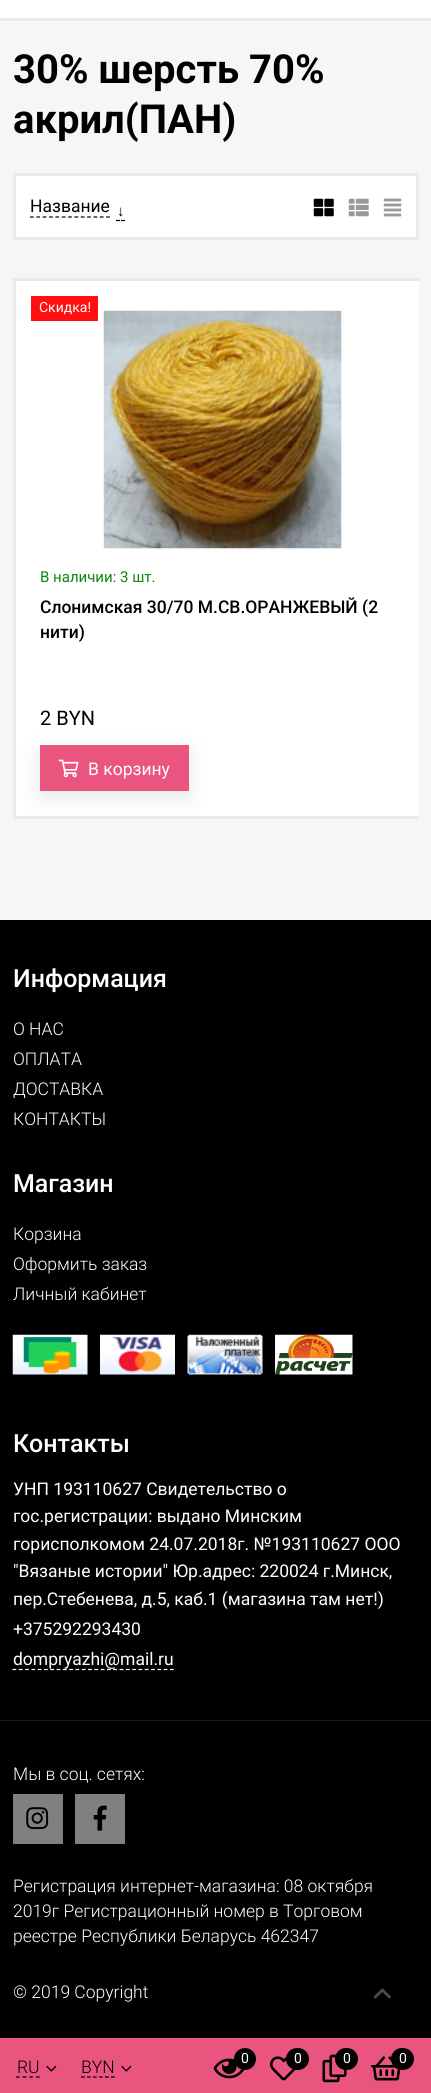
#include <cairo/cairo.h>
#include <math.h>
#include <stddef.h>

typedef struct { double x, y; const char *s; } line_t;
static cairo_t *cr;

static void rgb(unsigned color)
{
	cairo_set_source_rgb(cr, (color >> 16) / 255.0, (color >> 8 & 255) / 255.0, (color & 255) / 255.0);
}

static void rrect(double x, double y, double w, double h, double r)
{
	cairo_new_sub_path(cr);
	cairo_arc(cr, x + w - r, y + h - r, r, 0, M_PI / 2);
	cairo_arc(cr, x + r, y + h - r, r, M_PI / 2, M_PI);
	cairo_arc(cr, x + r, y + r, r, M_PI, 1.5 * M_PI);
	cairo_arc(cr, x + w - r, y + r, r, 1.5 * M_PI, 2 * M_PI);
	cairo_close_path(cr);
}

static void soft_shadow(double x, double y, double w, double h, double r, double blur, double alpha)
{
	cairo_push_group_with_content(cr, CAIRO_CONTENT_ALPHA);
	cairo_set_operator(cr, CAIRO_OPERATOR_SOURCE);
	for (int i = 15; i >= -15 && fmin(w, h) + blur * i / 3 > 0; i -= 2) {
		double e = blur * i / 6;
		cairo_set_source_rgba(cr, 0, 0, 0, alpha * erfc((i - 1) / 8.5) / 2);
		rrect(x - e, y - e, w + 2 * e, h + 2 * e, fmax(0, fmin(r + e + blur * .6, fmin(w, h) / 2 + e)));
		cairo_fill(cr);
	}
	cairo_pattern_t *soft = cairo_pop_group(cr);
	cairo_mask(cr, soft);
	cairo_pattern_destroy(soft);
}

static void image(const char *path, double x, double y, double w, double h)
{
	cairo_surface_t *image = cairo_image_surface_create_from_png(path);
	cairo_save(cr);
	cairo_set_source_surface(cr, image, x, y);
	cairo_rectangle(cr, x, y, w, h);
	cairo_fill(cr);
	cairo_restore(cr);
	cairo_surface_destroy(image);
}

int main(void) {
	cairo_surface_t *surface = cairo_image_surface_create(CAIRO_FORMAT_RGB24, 431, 2093);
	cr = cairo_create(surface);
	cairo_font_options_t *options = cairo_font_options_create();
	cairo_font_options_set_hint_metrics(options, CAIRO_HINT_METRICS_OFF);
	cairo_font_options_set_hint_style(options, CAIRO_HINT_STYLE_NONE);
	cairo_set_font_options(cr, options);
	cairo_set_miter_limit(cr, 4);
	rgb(0xf6f6f6);
	cairo_paint(cr);
	rgb(0xffffff);
	cairo_rectangle(cr, 0, 0, 431, 18);
	cairo_fill(cr);
	rgb(0xe9e9e9);
	cairo_rectangle(cr, 0, 18, 431, 3);
	cairo_fill(cr);
	rgb(0xffffff);
	cairo_rectangle(cr, 14.5, 174.5, 403, 64);
	cairo_fill_preserve(cr);
	rgb(0xe9e9e9);
	cairo_set_line_width(cr, 3);
	cairo_stroke(cr);
	cairo_new_path(cr);
	cairo_move_to(cr, 30, 217);
	cairo_line_to(cr, 110, 217);
	rgb(0x000000);
	cairo_set_line_width(cr, 1.2);
	cairo_set_dash(cr, (double[]){3.75, 2.6}, 2, 0);
	cairo_stroke(cr);
	cairo_new_path(cr);
	cairo_move_to(cr, 116, 220.5);
	cairo_line_to(cr, 120, 220.5);
	cairo_move_to(cr, 121, 220.5);
	cairo_line_to(cr, 125, 220.5);
	cairo_set_dash(cr, NULL, 0, 0);
	cairo_stroke(cr);
	image("img/1.png", 313, 198, 21, 19);
	image("img/2.png", 348, 198, 21, 19);
	image("img/3.png", 383, 198, 19, 19);
	rgb(0xffffff);
	cairo_rectangle(cr, 16, 281, 403, 535);
	cairo_fill(cr);
	cairo_save(cr);
	cairo_rectangle(cr, 13, 278, 406, 578);
	cairo_clip(cr);
	cairo_rectangle(cr, 14.5, 279.5, 415, 538);
	rgb(0xe9e9e9);
	cairo_set_line_width(cr, 3);
	cairo_stroke(cr);
	cairo_restore(cr);
	rgb(0xff0f0d);
	cairo_rectangle(cr, 31, 296, 67, 25);
	cairo_fill(cr);
	image("img/4.png", 103, 310, 239, 239);
	rgb(0x000000);
	soft_shadow(40, 751, 149, 47, 0, 11, 0.09);
	rgb(0xea557f);
	cairo_rectangle(cr, 40, 745, 149, 46);
	cairo_fill(cr);
	image("img/5.png", 58, 759, 21, 19);
	rgb(0x000000);
	cairo_rectangle(cr, 0, 920, 431, 1118);
	cairo_fill(cr);
	image("img/6.png", 12, 1334, 76, 41);
	image("img/7.png", 100, 1334, 75, 41);
	image("img/8.png", 187, 1334, 76, 41);
	image("img/9.png", 275, 1334, 78, 41);
	cairo_new_path(cr);
	cairo_move_to(cr, 12.5, 1669.5);
	cairo_line_to(cr, 174, 1669.5);
	rgb(0xffffff);
	cairo_set_dash(cr, (double[]){3.75, 2.55}, 2, 0);
	cairo_stroke(cr);
	rgb(0x1a1a1a);
	cairo_rectangle(cr, 0, 1720, 431, 1);
	cairo_fill(cr);
	rgb(0x808080);
	cairo_rectangle(cr, 13, 1794, 50, 50);
	cairo_fill(cr);
	image("img/10.png", 26, 1807, 23, 23);
	cairo_rectangle(cr, 75, 1794, 50, 50);
	cairo_fill(cr);
	image("img/11.png", 93, 1805, 14, 26);
	image("img/12.png", 373, 1988, 18, 11);
	rgb(0xea557f);
	cairo_rectangle(cr, 0, 2038, 431, 55);
	cairo_fill(cr);
	image("img/13.png", 213, 2058, 32, 21);
	rgb(0x000000);
	cairo_arc(cr, 245, 2059, 11, 0, 2 * M_PI);
	cairo_fill(cr);
	image("img/14.png", 270, 2056, 26, 25);
	rrect(286, 2048, 23, 22, 11);
	cairo_fill(cr);
	image("img/15.png", 322, 2054, 25, 29);
	rrect(335, 2048, 23, 22, 11);
	cairo_fill(cr);
	image("img/16.png", 371, 2056, 30, 25);
	rrect(391, 2048, 23, 22, 11);
	cairo_fill(cr);
	cairo_new_path(cr);
	cairo_move_to(cr, 16, 2077);
	cairo_line_to(cr, 40, 2077);
	cairo_set_dash(cr, (double[]){3.75, 2.91}, 2, 0);
	cairo_stroke(cr);
	image("img/17.png", 46, 2065, 11, 7);
	cairo_new_path(cr);
	cairo_move_to(cr, 81, 2077);
	cairo_line_to(cr, 115, 2077);
	cairo_set_dash(cr, (double[]){3.75, 2.25}, 2, 0);
	cairo_stroke(cr);
	image("img/17.png", 121, 2065, 11, 7);
	cairo_select_font_face(cr, "Roboto", CAIRO_FONT_SLANT_NORMAL, CAIRO_FONT_WEIGHT_BOLD);
	cairo_set_font_size(cr, 40);
	cairo_move_to(cr, 13, 83);
	cairo_show_text(cr, "30% шерсть 70%");
	cairo_move_to(cr, 13, 133);
	cairo_show_text(cr, "акрил(ПАН)");
	cairo_select_font_face(cr, "Roboto", CAIRO_FONT_SLANT_NORMAL, CAIRO_FONT_WEIGHT_NORMAL);
	cairo_set_font_size(cr, 17.5);
	cairo_move_to(cr, 30, 212);
	cairo_show_text(cr, "Название");
	cairo_select_font_face(cr, "Liberation Sans", CAIRO_FONT_SLANT_NORMAL, CAIRO_FONT_WEIGHT_BOLD);
	cairo_set_font_size(cr, 15);
	cairo_move_to(cr, 117, 216);
	cairo_show_text(cr, "↓");
	cairo_select_font_face(cr, "Roboto", CAIRO_FONT_SLANT_NORMAL, CAIRO_FONT_WEIGHT_NORMAL);
	cairo_set_font_size(cr, 14);
	rgb(0xffffff);
	cairo_move_to(cr, 39, 312);
	cairo_show_text(cr, "Скидка!");
	cairo_set_font_size(cr, 15);
	rgb(0x0e860e);
	cairo_move_to(cr, 40, 582);
	cairo_show_text(cr, "В наличии: 3 шт.");
	cairo_select_font_face(cr, "Roboto Medium", CAIRO_FONT_SLANT_NORMAL, CAIRO_FONT_WEIGHT_NORMAL);
	cairo_set_font_size(cr, 17.5);
	rgb(0x000000);
	cairo_move_to(cr, 40, 613);
	cairo_show_text(cr, "Слонимская 30/70 М.СВ.ОРАНЖЕВЫЙ (2");
	cairo_move_to(cr, 40, 638);
	cairo_show_text(cr, "нити)");
	cairo_select_font_face(cr, "Roboto", CAIRO_FONT_SLANT_NORMAL, CAIRO_FONT_WEIGHT_NORMAL);
	cairo_set_font_size(cr, 20);
	cairo_move_to(cr, 40, 725);
	cairo_show_text(cr, "2 BYN");
	cairo_set_font_size(cr, 17.5);
	rgb(0xffffff);
	cairo_move_to(cr, 88, 775);
	cairo_show_text(cr, "В корзину");
	cairo_select_font_face(cr, "Roboto Medium", CAIRO_FONT_SLANT_NORMAL, CAIRO_FONT_WEIGHT_NORMAL);
	cairo_set_font_size(cr, 25);
	cairo_move_to(cr, 13, 987);
	cairo_show_text(cr, "Информация");
	cairo_select_font_face(cr, "Roboto Light", CAIRO_FONT_SLANT_NORMAL, CAIRO_FONT_WEIGHT_NORMAL);
	cairo_set_font_size(cr, 17.5);
	{
		static const line_t items[] = {
			{13, 1035, "О НАС"},
			{13, 1065, "ОПЛАТА"},
			{13, 1095, "ДОСТАВКА"},
			{13, 1125, "КОНТАКТЫ"},
		};
		for (size_t i = 0; i < sizeof items / sizeof *items; i++) {
			cairo_move_to(cr, items[i].x, items[i].y);
			cairo_show_text(cr, items[i].s);
		}
	}
	cairo_select_font_face(cr, "Roboto Medium", CAIRO_FONT_SLANT_NORMAL, CAIRO_FONT_WEIGHT_NORMAL);
	cairo_set_font_size(cr, 25);
	cairo_move_to(cr, 13, 1192);
	cairo_show_text(cr, "Магазин");
	cairo_select_font_face(cr, "Roboto Light", CAIRO_FONT_SLANT_NORMAL, CAIRO_FONT_WEIGHT_NORMAL);
	cairo_set_font_size(cr, 17.5);
	{
		static const line_t items[] = {
			{13, 1240, "Корзина"},
			{13, 1270, "Оформить заказ"},
			{13, 1300, "Личный кабинет"},
		};
		for (size_t i = 0; i < sizeof items / sizeof *items; i++) {
			cairo_move_to(cr, items[i].x, items[i].y);
			cairo_show_text(cr, items[i].s);
		}
	}
	cairo_select_font_face(cr, "Roboto Medium", CAIRO_FONT_SLANT_NORMAL, CAIRO_FONT_WEIGHT_NORMAL);
	cairo_set_font_size(cr, 25);
	cairo_move_to(cr, 13, 1452);
	cairo_show_text(cr, "Контакты");
	cairo_select_font_face(cr, "Roboto", CAIRO_FONT_SLANT_NORMAL, CAIRO_FONT_WEIGHT_NORMAL);
	cairo_set_font_size(cr, 17.5);
	{
		static const line_t items[] = {
			{13, 1495, "УНП 193110627 Свидетельство о"},
			{13, 1522, "гос.регистрации: выдано Минским"},
			{13, 1550, "горисполкомом 24.07.2018г. №193110627 ООО"},
			{13, 1577, "\"Вязаные истории\" Юр.адрес: 220024 г.Минск,"},
			{13, 1605, "пер.Стебенева, д.5, каб.1 (магазина там нет!)"},
			{13, 1635, "+375292293430"},
			{13, 1665, "dompryazhi@mail.ru"},
		};
		for (size_t i = 0; i < sizeof items / sizeof *items; i++) {
			cairo_move_to(cr, items[i].x, items[i].y);
			cairo_show_text(cr, items[i].s);
		}
	}
	cairo_select_font_face(cr, "Roboto Light", CAIRO_FONT_SLANT_NORMAL, CAIRO_FONT_WEIGHT_NORMAL);
	{
		static const line_t items[] = {
			{13, 1780, "Мы в соц. сетях:"},
			{13, 1892, "Регистрация интернет-магазина: 08 октября"},
			{13, 1917, "2019г Регистрационный номер в Торговом"},
			{13, 1942, "реестре Республики Беларусь 462347"},
			{13, 1998, "© 2019 Copyright"},
		};
		for (size_t i = 0; i < sizeof items / sizeof *items; i++) {
			cairo_move_to(cr, items[i].x, items[i].y);
			cairo_show_text(cr, items[i].s);
		}
	}
	cairo_select_font_face(cr, "Roboto", CAIRO_FONT_SLANT_NORMAL, CAIRO_FONT_WEIGHT_NORMAL);
	cairo_set_font_size(cr, 14);
	{
		static const line_t items[] = {
			{241, 2063, "0"},
			{294, 2063, "0"},
			{343, 2063, "0"},
			{399, 2063, "0"},
		};
		for (size_t i = 0; i < sizeof items / sizeof *items; i++) {
			cairo_move_to(cr, items[i].x, items[i].y);
			cairo_show_text(cr, items[i].s);
		}
	}
	cairo_select_font_face(cr, "Roboto Light", CAIRO_FONT_SLANT_NORMAL, CAIRO_FONT_WEIGHT_NORMAL);
	cairo_set_font_size(cr, 17.5);
	rgb(0x000000);
	cairo_move_to(cr, 17, 2073);
	cairo_show_text(cr, "RU");
	cairo_move_to(cr, 81, 2073);
	cairo_show_text(cr, "BYN");
	cairo_surface_write_to_png(surface, "page.png");
	cairo_font_options_destroy(options);
	cairo_destroy(cr);
	cairo_surface_destroy(surface);
	return 0;
}
